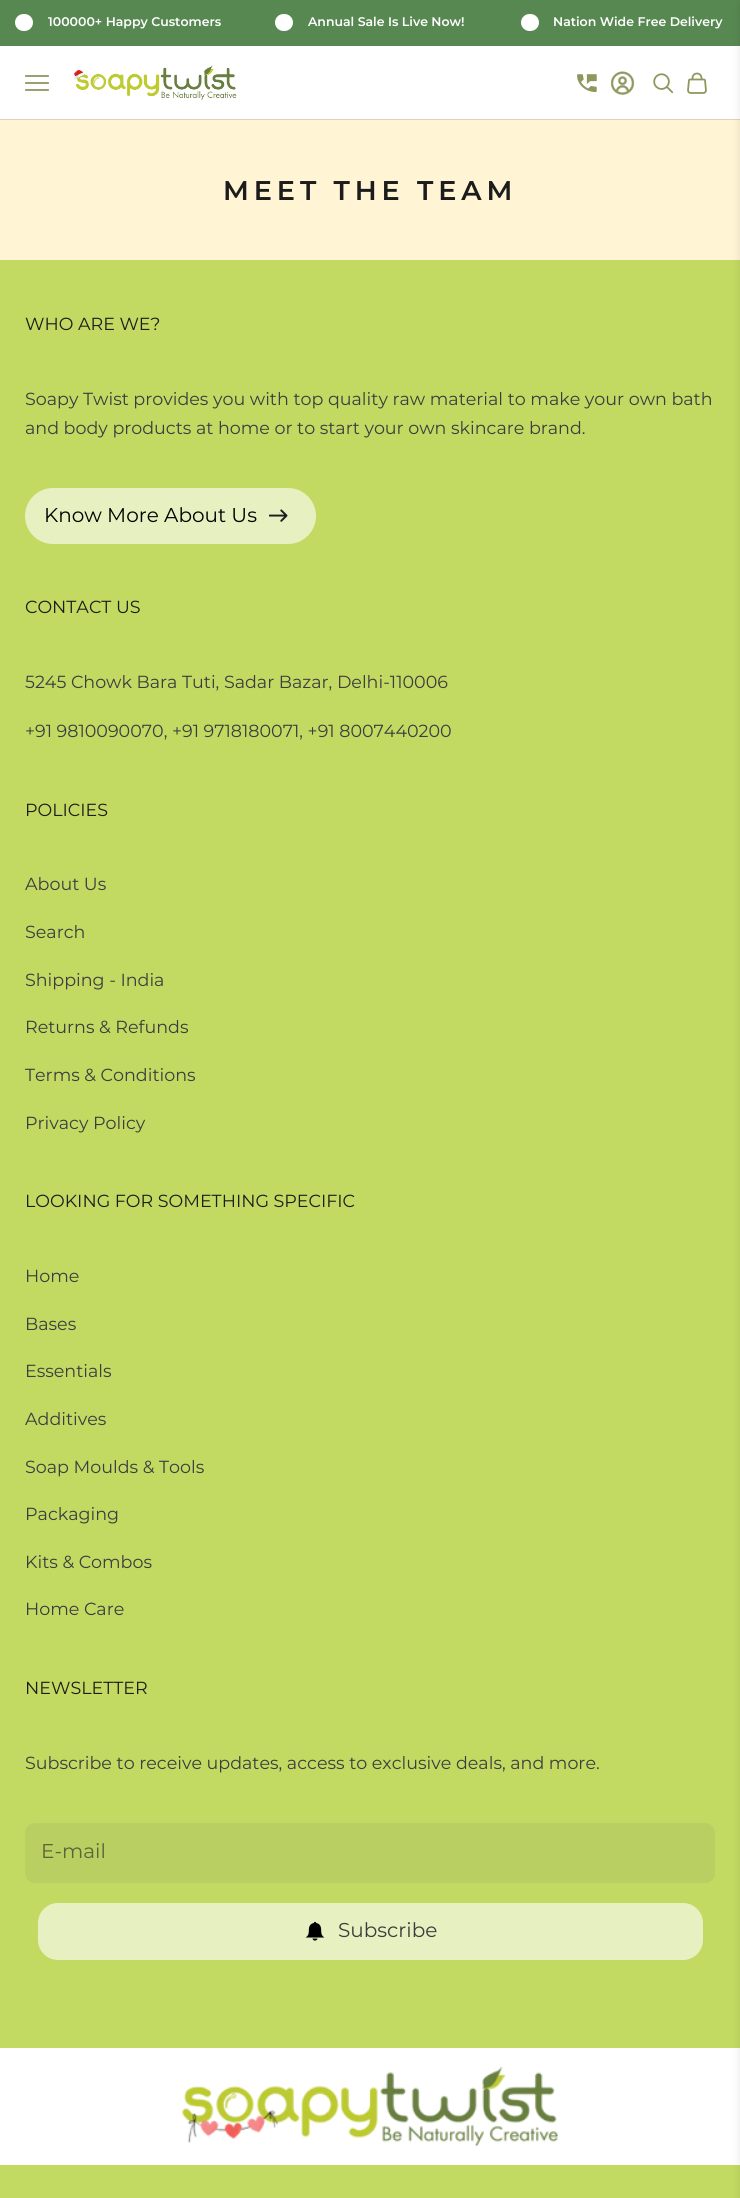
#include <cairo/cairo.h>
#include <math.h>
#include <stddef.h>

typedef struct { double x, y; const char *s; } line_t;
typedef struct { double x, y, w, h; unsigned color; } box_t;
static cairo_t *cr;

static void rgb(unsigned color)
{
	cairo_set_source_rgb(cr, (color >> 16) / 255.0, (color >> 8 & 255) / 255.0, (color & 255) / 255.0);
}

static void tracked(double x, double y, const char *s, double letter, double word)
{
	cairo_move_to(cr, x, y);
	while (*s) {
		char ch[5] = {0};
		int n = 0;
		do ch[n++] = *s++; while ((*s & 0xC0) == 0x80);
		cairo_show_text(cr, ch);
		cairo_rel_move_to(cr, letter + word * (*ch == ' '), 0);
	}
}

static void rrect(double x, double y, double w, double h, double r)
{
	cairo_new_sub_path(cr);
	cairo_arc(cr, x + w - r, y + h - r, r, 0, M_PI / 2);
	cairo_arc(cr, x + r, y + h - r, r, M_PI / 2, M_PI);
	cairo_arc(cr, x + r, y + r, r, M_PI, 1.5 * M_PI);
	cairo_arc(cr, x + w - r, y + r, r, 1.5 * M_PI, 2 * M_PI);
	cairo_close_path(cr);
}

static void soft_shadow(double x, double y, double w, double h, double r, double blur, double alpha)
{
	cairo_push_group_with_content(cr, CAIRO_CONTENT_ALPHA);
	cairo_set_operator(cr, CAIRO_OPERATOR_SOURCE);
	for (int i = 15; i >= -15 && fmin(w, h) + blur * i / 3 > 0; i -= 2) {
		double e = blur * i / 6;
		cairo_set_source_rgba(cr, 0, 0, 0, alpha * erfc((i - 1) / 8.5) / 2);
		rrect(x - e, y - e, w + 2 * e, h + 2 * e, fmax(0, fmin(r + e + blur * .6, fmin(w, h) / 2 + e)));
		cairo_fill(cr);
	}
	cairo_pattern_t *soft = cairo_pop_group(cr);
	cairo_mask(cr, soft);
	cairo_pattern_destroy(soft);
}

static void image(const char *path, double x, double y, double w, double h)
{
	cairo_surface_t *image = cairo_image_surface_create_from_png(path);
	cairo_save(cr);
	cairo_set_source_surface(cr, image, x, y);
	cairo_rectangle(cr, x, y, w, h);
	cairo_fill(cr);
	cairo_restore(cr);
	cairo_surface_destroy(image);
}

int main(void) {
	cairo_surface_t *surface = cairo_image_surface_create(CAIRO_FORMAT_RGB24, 740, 2198);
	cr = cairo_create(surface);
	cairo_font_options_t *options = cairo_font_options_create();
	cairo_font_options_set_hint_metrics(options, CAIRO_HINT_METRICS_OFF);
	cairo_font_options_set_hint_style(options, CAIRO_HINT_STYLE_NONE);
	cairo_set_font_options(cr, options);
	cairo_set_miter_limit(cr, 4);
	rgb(0xfff5d4);
	cairo_paint(cr);
	rgb(0x588851);
	cairo_rectangle(cr, 0, 0, 740, 46);
	cairo_fill(cr);
	rgb(0xffffff);
	rrect(15, 14, 18, 17, 8.5);
	cairo_fill(cr);
	rrect(275, 14, 18, 17, 8.5);
	cairo_fill(cr);
	rrect(521, 14, 18, 17, 8.5);
	cairo_fill(cr);
	{
		static const box_t items[] = {
			{0, 46, 740, 73, 0xffffff},
			{0, 119, 740, 1, 0xddd4b8},
			{0, 260, 740, 1938, 0xc2da61},
			{0, 2048, 740, 117, 0xffffff},
		};
		for (size_t i = 0; i < sizeof items / sizeof *items; i++) {
			rgb(items[i].color);
			cairo_rectangle(cr, items[i].x, items[i].y, items[i].w, items[i].h);
			cairo_fill(cr);
		}
	}
	rgb(0x000000);
	soft_shadow(740, 5, 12, 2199, 0, 4, 0.1);
	cairo_new_path(cr);
	cairo_move_to(cr, 26, 90);
	cairo_line_to(cr, 48, 90);
	cairo_move_to(cr, 26, 83);
	cairo_line_to(cr, 48, 83);
	cairo_move_to(cr, 26, 76);
	cairo_line_to(cr, 48, 76);
	rgb(0x8d985e);
	cairo_set_line_width(cr, 1.8);
	cairo_set_line_cap(cr, CAIRO_LINE_CAP_SQUARE);
	cairo_stroke(cr);
	image("img/1.png", 74, 65, 163, 35);
	image("img/2.png", 577, 74, 20, 18);
	image("img/3.png", 610, 71, 25, 24);
	image("img/4.png", 653, 73, 21, 21);
	image("img/5.png", 687, 72, 20, 22);
	rgb(0xe7f0c0);
	rrect(25, 488, 291, 56, 28);
	cairo_fill(cr);
	image("img/6.png", 269, 509, 19, 13);
	rgb(0xb9cf62);
	rrect(25, 1823, 690, 60, 10);
	cairo_fill(cr);
	rgb(0xe7f0c0);
	rrect(38, 1903, 665, 57, 20);
	cairo_fill(cr);
	image("img/7.png", 305, 1921, 20, 20);
	image("img/8.png", 182, 2066, 376, 81);
	cairo_select_font_face(cr, "Montserrat SemiBold", CAIRO_FONT_SLANT_NORMAL, CAIRO_FONT_WEIGHT_NORMAL);
	cairo_set_font_size(cr, 12.5);
	rgb(0xffffff);
	{
		static const line_t items[] = {
			{48, 26, "100000+ Happy Customers"},
			{308, 26, "Annual Sale Is Live Now!"},
			{553, 26, "Nation Wide Free Delivery"},
		};
		for (size_t i = 0; i < sizeof items / sizeof *items; i++) {
			cairo_move_to(cr, items[i].x, items[i].y);
			cairo_show_text(cr, items[i].s);
		}
	}
	cairo_set_font_size(cr, 27.1);
	rgb(0x1c1c1c);
	tracked(223, 200, "MEET THE TEAM", 4.9, 0);
	cairo_select_font_face(cr, "Montserrat", CAIRO_FONT_SLANT_NORMAL, CAIRO_FONT_WEIGHT_NORMAL);
	cairo_set_font_size(cr, 17.5);
	cairo_move_to(cr, 25, 330);
	cairo_show_text(cr, "WHO ARE WE?");
	rgb(0x3b3d40);
	cairo_move_to(cr, 25, 405);
	cairo_show_text(cr, "Soapy Twist provides you with top quality raw material to make your own bath");
	cairo_move_to(cr, 25, 434);
	cairo_show_text(cr, "and body products at home or to start your own skincare brand.");
	cairo_set_font_size(cr, 20);
	rgb(0x000000);
	cairo_move_to(cr, 44, 522);
	cairo_show_text(cr, "Know More About Us");
	cairo_set_font_size(cr, 17.5);
	rgb(0x1c1c1c);
	cairo_move_to(cr, 25, 613);
	cairo_show_text(cr, "CONTACT US");
	rgb(0x3b3d40);
	cairo_move_to(cr, 25, 688);
	cairo_show_text(cr, "5245 Chowk Bara Tuti, Sadar Bazar, Delhi-110006");
	cairo_move_to(cr, 25, 737);
	cairo_show_text(cr, "+91 9810090070, +91 9718180071, +91 8007440200");
	rgb(0x1c1c1c);
	cairo_move_to(cr, 25, 816);
	cairo_show_text(cr, "POLICIES");
	rgb(0x3b3d40);
	{
		static const line_t items[] = {
			{25, 890, "About Us"},
			{25, 938, "Search"},
			{25, 986, "Shipping - India"},
			{25, 1033, "Returns & Refunds"},
			{25, 1081, "Terms & Conditions"},
			{25, 1129, "Privacy Policy"},
		};
		for (size_t i = 0; i < sizeof items / sizeof *items; i++) {
			cairo_move_to(cr, items[i].x, items[i].y);
			cairo_show_text(cr, items[i].s);
		}
	}
	rgb(0x1c1c1c);
	cairo_move_to(cr, 25, 1207);
	cairo_show_text(cr, "LOOKING FOR SOMETHING SPECIFIC");
	rgb(0x3b3d40);
	{
		static const line_t items[] = {
			{25, 1282, "Home"},
			{25, 1330, "Bases"},
			{25, 1377, "Essentials"},
			{25, 1425, "Additives"},
			{25, 1473, "Soap Moulds & Tools"},
			{25, 1520, "Packaging"},
			{25, 1568, "Kits & Combos"},
			{25, 1615, "Home Care"},
		};
		for (size_t i = 0; i < sizeof items / sizeof *items; i++) {
			cairo_move_to(cr, items[i].x, items[i].y);
			cairo_show_text(cr, items[i].s);
		}
	}
	rgb(0x1c1c1c);
	cairo_move_to(cr, 25, 1694);
	cairo_show_text(cr, "NEWSLETTER");
	rgb(0x3b3d40);
	cairo_move_to(cr, 25, 1769);
	cairo_show_text(cr, "Subscribe to receive updates, access to exclusive deals, and more.");
	cairo_set_font_size(cr, 20);
	rgb(0x5b6438);
	cairo_move_to(cr, 41, 1858);
	cairo_show_text(cr, "E-mail");
	rgb(0x3b3d40);
	cairo_move_to(cr, 338, 1937);
	cairo_show_text(cr, "Subscribe");
	cairo_surface_write_to_png(surface, "page.png");
	cairo_font_options_destroy(options);
	cairo_destroy(cr);
	cairo_surface_destroy(surface);
	return 0;
}
